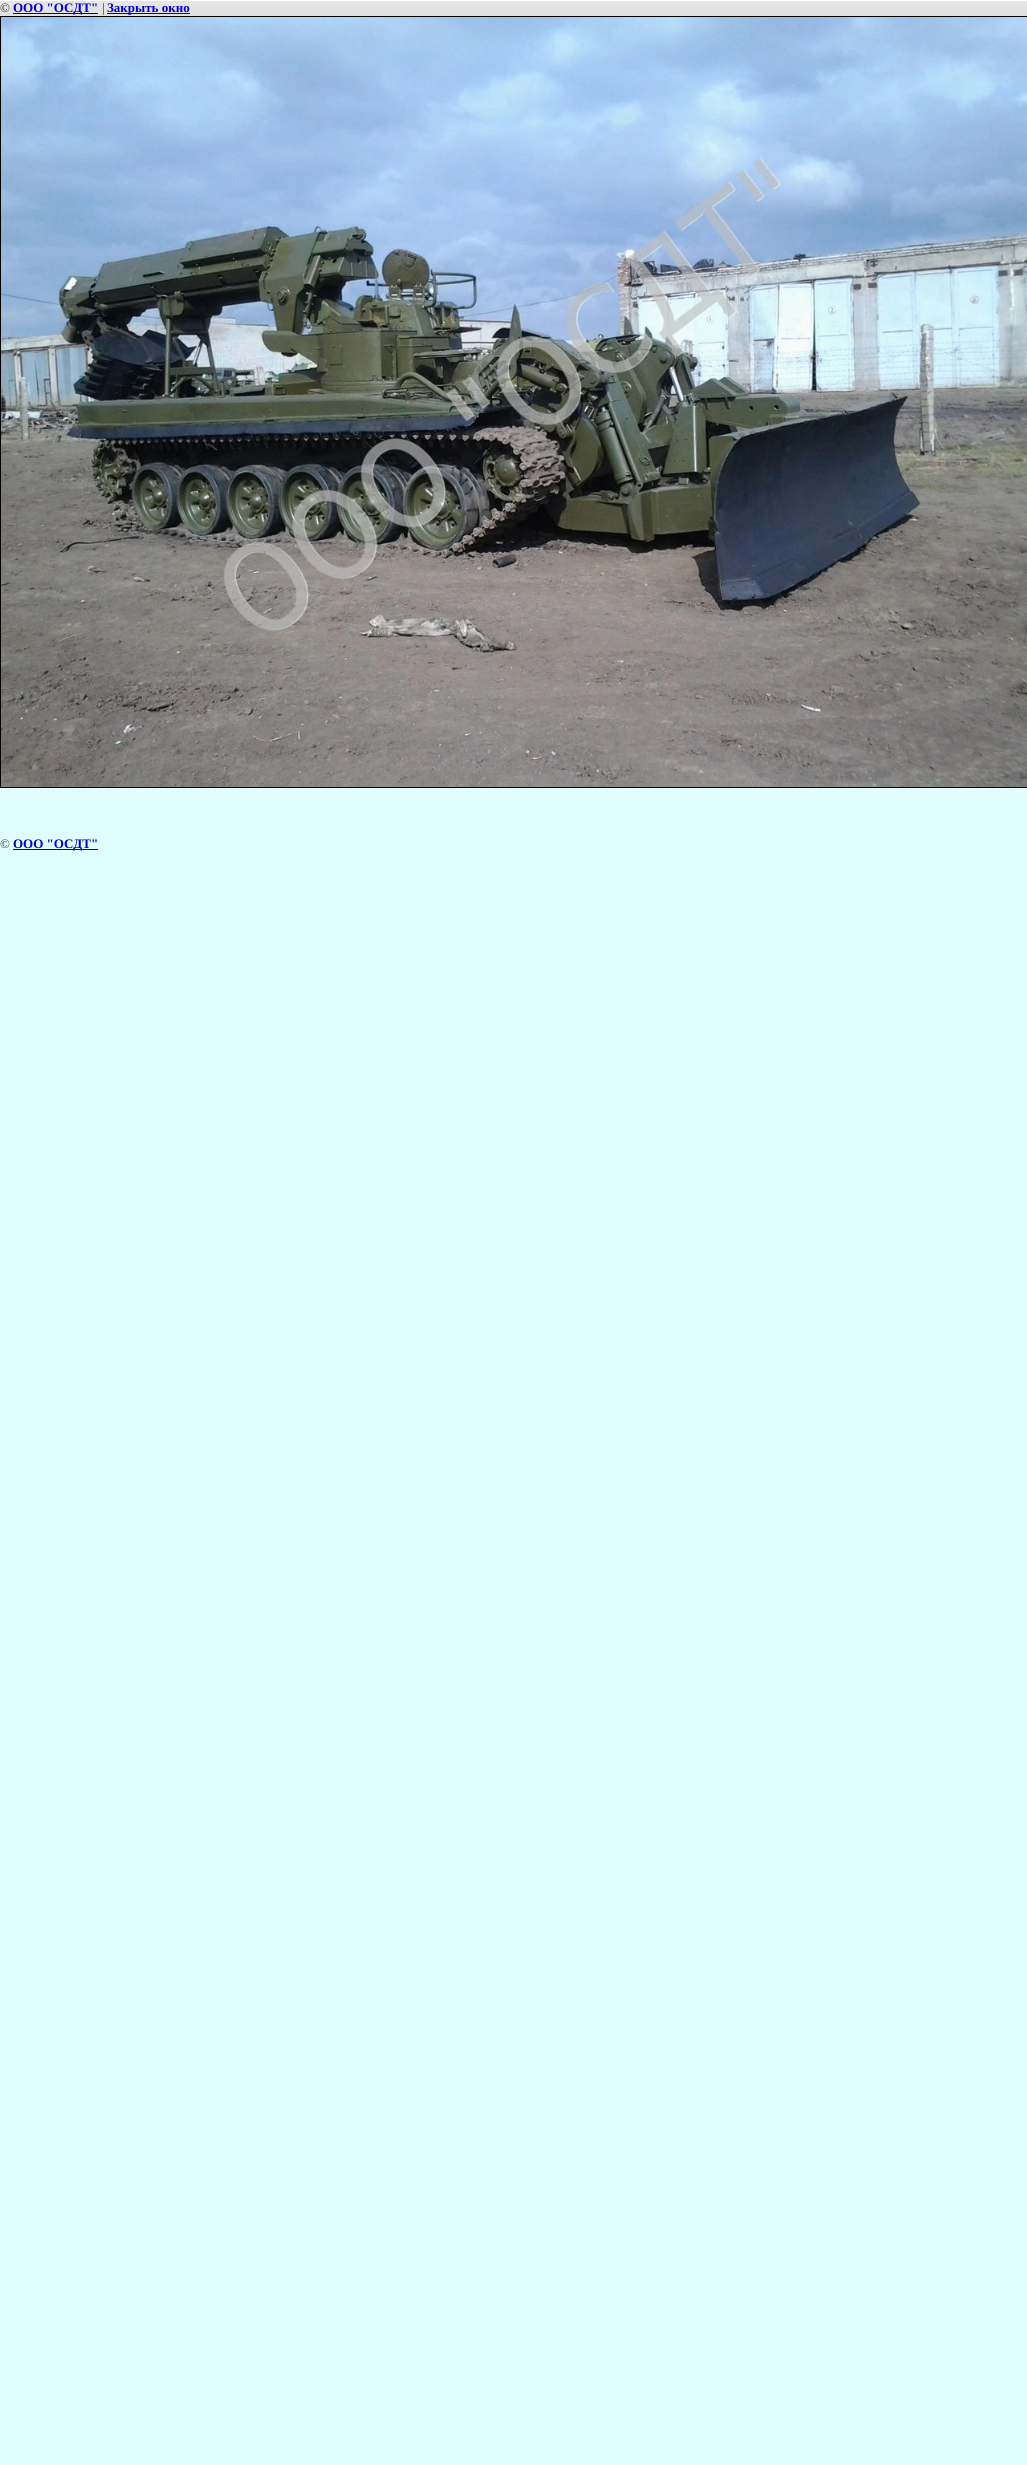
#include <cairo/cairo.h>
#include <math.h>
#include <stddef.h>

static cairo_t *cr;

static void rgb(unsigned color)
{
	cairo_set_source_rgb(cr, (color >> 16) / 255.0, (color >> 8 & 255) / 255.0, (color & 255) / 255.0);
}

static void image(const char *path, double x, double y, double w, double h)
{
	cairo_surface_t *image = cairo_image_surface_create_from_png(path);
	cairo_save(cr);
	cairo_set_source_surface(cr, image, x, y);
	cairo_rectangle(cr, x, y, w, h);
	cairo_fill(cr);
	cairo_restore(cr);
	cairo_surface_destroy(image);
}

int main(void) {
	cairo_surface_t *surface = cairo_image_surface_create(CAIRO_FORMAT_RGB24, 1027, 2465);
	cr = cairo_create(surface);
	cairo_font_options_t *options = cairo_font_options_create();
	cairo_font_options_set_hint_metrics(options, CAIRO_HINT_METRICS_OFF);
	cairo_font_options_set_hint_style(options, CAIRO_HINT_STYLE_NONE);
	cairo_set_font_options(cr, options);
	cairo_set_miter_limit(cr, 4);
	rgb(0xe2fdfd);
	cairo_paint(cr);
	image("img/1.png", 0, 0, 1027, 16);
	rgb(0x0000cc);
	cairo_rectangle(cr, 13, 13, 85, 1);
	cairo_fill(cr);
	cairo_rectangle(cr, 107, 13, 83, 1);
	cairo_fill(cr);
	cairo_rectangle(cr, 0.5, 16.5, 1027, 771);
	rgb(0x000000);
	cairo_set_line_width(cr, 1);
	cairo_stroke(cr);
	image("img/2.png", 1, 17, 1026, 770);
	rgb(0x0000cc);
	cairo_rectangle(cr, 13, 849, 85, 1);
	cairo_fill(cr);
	cairo_select_font_face(cr, "Liberation Serif", CAIRO_FONT_SLANT_NORMAL, CAIRO_FONT_WEIGHT_NORMAL);
	cairo_set_font_size(cr, 13);
	rgb(0x303030);
	cairo_move_to(cr, 0, 12);
	cairo_show_text(cr, "©");
	cairo_select_font_face(cr, "Liberation Serif", CAIRO_FONT_SLANT_NORMAL, CAIRO_FONT_WEIGHT_BOLD);
	rgb(0x0000cc);
	cairo_move_to(cr, 13, 12);
	cairo_show_text(cr, "ООО \"ОСДТ\"");
	cairo_select_font_face(cr, "Liberation Serif", CAIRO_FONT_SLANT_NORMAL, CAIRO_FONT_WEIGHT_NORMAL);
	rgb(0x303030);
	cairo_move_to(cr, 102, 12);
	cairo_show_text(cr, "|");
	cairo_select_font_face(cr, "Liberation Serif", CAIRO_FONT_SLANT_NORMAL, CAIRO_FONT_WEIGHT_BOLD);
	rgb(0x0000cc);
	cairo_move_to(cr, 107, 12);
	cairo_show_text(cr, "Закрыть окно");
	cairo_select_font_face(cr, "Liberation Serif", CAIRO_FONT_SLANT_NORMAL, CAIRO_FONT_WEIGHT_NORMAL);
	rgb(0x303030);
	cairo_move_to(cr, 0, 848);
	cairo_show_text(cr, "©");
	cairo_select_font_face(cr, "Liberation Serif", CAIRO_FONT_SLANT_NORMAL, CAIRO_FONT_WEIGHT_BOLD);
	rgb(0x0000cc);
	cairo_move_to(cr, 13, 848);
	cairo_show_text(cr, "ООО \"ОСДТ\"");
	cairo_surface_write_to_png(surface, "page.png");
	cairo_font_options_destroy(options);
	cairo_destroy(cr);
	cairo_surface_destroy(surface);
	return 0;
}
